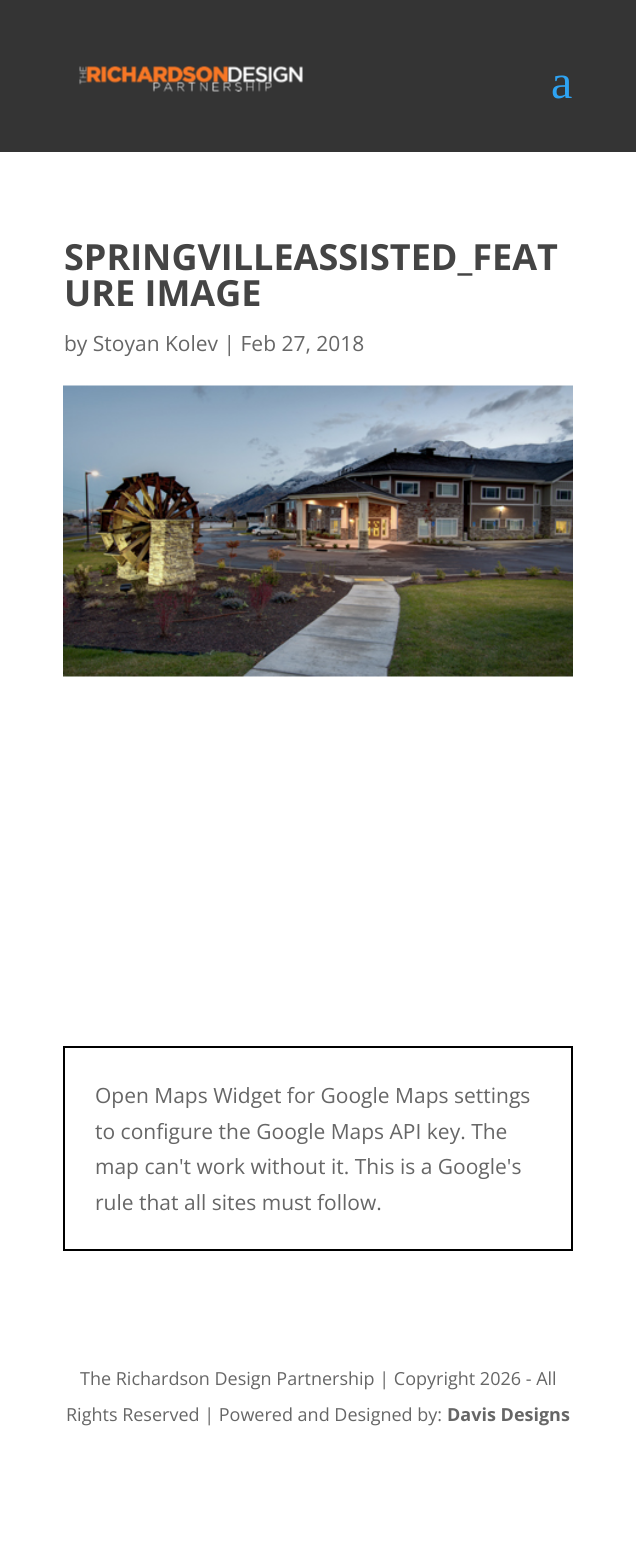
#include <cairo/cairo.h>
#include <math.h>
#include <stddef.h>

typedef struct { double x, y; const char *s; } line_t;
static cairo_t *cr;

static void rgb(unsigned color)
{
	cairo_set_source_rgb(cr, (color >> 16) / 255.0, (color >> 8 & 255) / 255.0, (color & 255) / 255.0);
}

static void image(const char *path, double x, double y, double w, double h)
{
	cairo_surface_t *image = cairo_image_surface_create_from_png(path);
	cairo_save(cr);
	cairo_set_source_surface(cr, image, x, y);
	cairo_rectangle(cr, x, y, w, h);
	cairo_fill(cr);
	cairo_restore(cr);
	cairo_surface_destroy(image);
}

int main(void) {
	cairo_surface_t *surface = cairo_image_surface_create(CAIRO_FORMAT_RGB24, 636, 1553);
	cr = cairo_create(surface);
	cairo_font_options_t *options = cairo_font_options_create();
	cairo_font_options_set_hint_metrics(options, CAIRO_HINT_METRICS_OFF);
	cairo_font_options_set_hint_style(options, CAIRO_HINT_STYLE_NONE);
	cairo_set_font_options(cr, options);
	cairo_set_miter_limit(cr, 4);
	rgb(0xffffff);
	cairo_paint(cr);
	rgb(0x343434);
	cairo_rectangle(cr, 0, 0, 636, 152);
	cairo_fill(cr);
	image("img/1.png", 79, 66, 224, 26);
	image("img/2.png", 63, 385, 510, 292);
	cairo_rectangle(cr, 64, 1047, 508, 203);
	rgb(0x000000);
	cairo_stroke(cr);
	cairo_select_font_face(cr, "Liberation Serif", CAIRO_FONT_SLANT_NORMAL, CAIRO_FONT_WEIGHT_NORMAL);
	cairo_set_font_size(cr, 48);
	rgb(0x2ea3f2);
	cairo_move_to(cr, 551, 98);
	cairo_show_text(cr, "a");
	cairo_select_font_face(cr, "Open Sans", CAIRO_FONT_SLANT_NORMAL, CAIRO_FONT_WEIGHT_BOLD);
	cairo_set_font_size(cr, 36);
	rgb(0x444444);
	cairo_move_to(cr, 64, 270);
	cairo_show_text(cr, "SPRINGVILLEASSISTED_FEAT");
	cairo_move_to(cr, 64, 306);
	cairo_show_text(cr, "URE IMAGE");
	cairo_select_font_face(cr, "Open Sans", CAIRO_FONT_SLANT_NORMAL, CAIRO_FONT_WEIGHT_NORMAL);
	cairo_set_font_size(cr, 21);
	rgb(0x666666);
	{
		static const line_t items[] = {
			{64, 351, "by Stoyan Kolev | Feb 27, 2018"},
			{95, 1103, "Open Maps Widget for Google Maps settings"},
			{95, 1139, "to configure the Google Maps API key. The"},
			{95, 1174, "map can't work without it. This is a Google's"},
			{95, 1210, "rule that all sites must follow."},
		};
		for (size_t i = 0; i < sizeof items / sizeof *items; i++) {
			cairo_move_to(cr, items[i].x, items[i].y);
			cairo_show_text(cr, items[i].s);
		}
	}
	cairo_set_font_size(cr, 18);
	cairo_move_to(cr, 80, 1385);
	cairo_show_text(cr, "The Richardson Design Partnership | Copyright 2026 - All");
	cairo_move_to(cr, 66, 1421);
	cairo_show_text(cr, "Rights Reserved | Powered and Designed by:");
	cairo_select_font_face(cr, "Open Sans", CAIRO_FONT_SLANT_NORMAL, CAIRO_FONT_WEIGHT_BOLD);
	cairo_move_to(cr, 447, 1421);
	cairo_show_text(cr, "Davis Designs");
	cairo_surface_write_to_png(surface, "page.png");
	cairo_font_options_destroy(options);
	cairo_destroy(cr);
	cairo_surface_destroy(surface);
	return 0;
}
